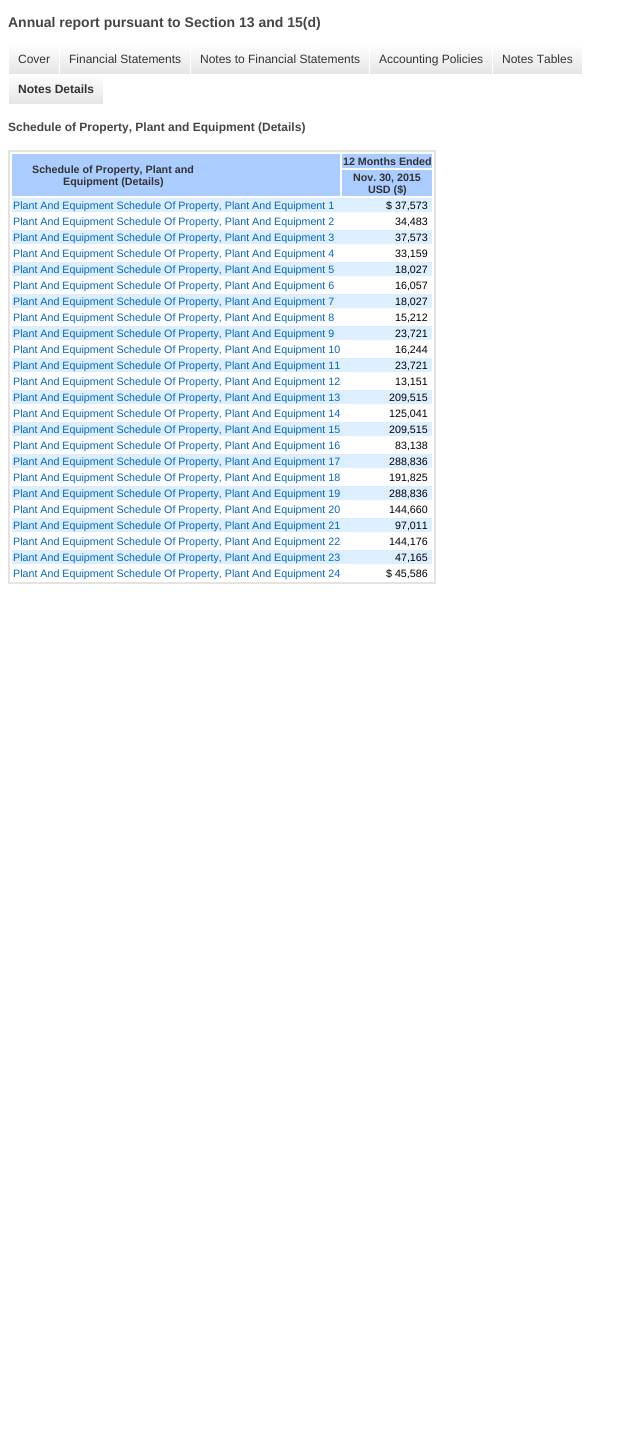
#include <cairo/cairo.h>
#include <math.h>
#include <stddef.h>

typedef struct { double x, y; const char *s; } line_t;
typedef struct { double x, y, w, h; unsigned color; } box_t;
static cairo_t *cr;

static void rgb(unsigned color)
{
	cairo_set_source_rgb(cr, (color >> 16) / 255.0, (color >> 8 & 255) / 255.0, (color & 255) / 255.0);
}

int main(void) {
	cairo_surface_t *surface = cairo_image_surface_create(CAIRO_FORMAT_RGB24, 619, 1430);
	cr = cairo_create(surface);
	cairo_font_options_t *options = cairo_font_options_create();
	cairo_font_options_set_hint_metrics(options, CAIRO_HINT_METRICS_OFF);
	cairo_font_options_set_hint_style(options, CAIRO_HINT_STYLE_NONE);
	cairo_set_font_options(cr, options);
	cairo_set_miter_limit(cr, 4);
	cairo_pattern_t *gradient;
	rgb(0xffffff);
	cairo_paint(cr);
	gradient = cairo_pattern_create_linear(34, 44, 34, 74);
	cairo_pattern_add_color_stop_rgba(gradient, 0, 1, 1, 1, 1);
	cairo_pattern_add_color_stop_rgba(gradient, 1, 0.898, 0.898, 0.898, 1);
	cairo_set_source(cr, gradient);
	cairo_pattern_destroy(gradient);
	cairo_rectangle(cr, 9, 47, 50, 27);
	cairo_fill(cr);
	gradient = cairo_pattern_create_linear(125, 44, 125, 74);
	cairo_pattern_add_color_stop_rgba(gradient, 0, 1, 1, 1, 1);
	cairo_pattern_add_color_stop_rgba(gradient, 1, 0.898, 0.898, 0.898, 1);
	cairo_set_source(cr, gradient);
	cairo_pattern_destroy(gradient);
	cairo_rectangle(cr, 60, 47, 130, 27);
	cairo_fill(cr);
	gradient = cairo_pattern_create_linear(280, 44, 280, 74);
	cairo_pattern_add_color_stop_rgba(gradient, 0, 1, 1, 1, 1);
	cairo_pattern_add_color_stop_rgba(gradient, 1, 0.898, 0.898, 0.898, 1);
	cairo_set_source(cr, gradient);
	cairo_pattern_destroy(gradient);
	cairo_rectangle(cr, 191, 47, 178, 27);
	cairo_fill(cr);
	gradient = cairo_pattern_create_linear(431, 44, 431, 74);
	cairo_pattern_add_color_stop_rgba(gradient, 0, 1, 1, 1, 1);
	cairo_pattern_add_color_stop_rgba(gradient, 1, 0.898, 0.898, 0.898, 1);
	cairo_set_source(cr, gradient);
	cairo_pattern_destroy(gradient);
	cairo_rectangle(cr, 370, 47, 122, 27);
	cairo_fill(cr);
	gradient = cairo_pattern_create_linear(538, 44, 538, 74);
	cairo_pattern_add_color_stop_rgba(gradient, 0, 1, 1, 1, 1);
	cairo_pattern_add_color_stop_rgba(gradient, 1, 0.898, 0.898, 0.898, 1);
	cairo_set_source(cr, gradient);
	cairo_pattern_destroy(gradient);
	cairo_rectangle(cr, 493, 47, 89, 27);
	cairo_fill(cr);
	gradient = cairo_pattern_create_linear(56, 74, 56, 104);
	cairo_pattern_add_color_stop_rgba(gradient, 0, 1, 1, 1, 1);
	cairo_pattern_add_color_stop_rgba(gradient, 1, 0.898, 0.898, 0.898, 1);
	cairo_set_source(cr, gradient);
	cairo_pattern_destroy(gradient);
	cairo_rectangle(cr, 9, 77, 94, 27);
	cairo_fill(cr);
	cairo_rectangle(cr, 9, 151, 426, 432);
	rgb(0xe3e3e3);
	cairo_stroke(cr);
	{
		static const box_t items[] = {
			{342, 154, 90, 14, 0xaaccff},
			{12, 154, 328, 42, 0xaaccff},
			{342, 170, 90, 26, 0xaaccff},
			{12, 198, 420, 14, 0xddeeff},
			{12, 230, 420, 14, 0xddeeff},
			{12, 262, 420, 14, 0xddeeff},
			{12, 294, 420, 14, 0xddeeff},
			{12, 326, 420, 14, 0xddeeff},
			{12, 358, 420, 14, 0xddeeff},
			{12, 390, 420, 14, 0xddeeff},
			{12, 422, 420, 14, 0xddeeff},
			{12, 454, 420, 14, 0xddeeff},
			{12, 486, 420, 14, 0xddeeff},
			{12, 518, 420, 14, 0xddeeff},
			{12, 550, 420, 14, 0xddeeff},
		};
		for (size_t i = 0; i < sizeof items / sizeof *items; i++) {
			rgb(items[i].color);
			cairo_rectangle(cr, items[i].x, items[i].y, items[i].w, items[i].h);
			cairo_fill(cr);
		}
	}
	cairo_select_font_face(cr, "Liberation Sans", CAIRO_FONT_SLANT_NORMAL, CAIRO_FONT_WEIGHT_BOLD);
	cairo_set_font_size(cr, 14);
	rgb(0x454545);
	cairo_move_to(cr, 8, 27);
	cairo_show_text(cr, "Annual report pursuant to Section 13 and 15(d)");
	cairo_select_font_face(cr, "Liberation Sans", CAIRO_FONT_SLANT_NORMAL, CAIRO_FONT_WEIGHT_NORMAL);
	cairo_set_font_size(cr, 12);
	rgb(0x333333);
	{
		static const line_t items[] = {
			{18, 63, "Cover"},
			{69, 63, "Financial Statements"},
			{200, 63, "Notes to Financial Statements"},
			{379, 63, "Accounting Policies"},
			{502, 63, "Notes Tables"},
		};
		for (size_t i = 0; i < sizeof items / sizeof *items; i++) {
			cairo_move_to(cr, items[i].x, items[i].y);
			cairo_show_text(cr, items[i].s);
		}
	}
	cairo_select_font_face(cr, "Liberation Sans", CAIRO_FONT_SLANT_NORMAL, CAIRO_FONT_WEIGHT_BOLD);
	cairo_move_to(cr, 18, 93);
	cairo_show_text(cr, "Notes Details");
	rgb(0x454545);
	cairo_move_to(cr, 8, 131);
	cairo_show_text(cr, "Schedule of Property, Plant and Equipment (Details)");
	cairo_set_font_size(cr, 10.7);
	rgb(0x333333);
	{
		static const line_t items[] = {
			{343, 165, "12 Months Ended"},
			{32, 173, "Schedule of Property, Plant and"},
			{63, 185, "Equipment (Details)"},
			{353, 181, "Nov. 30, 2015"},
			{368, 193, "USD ($)"},
		};
		for (size_t i = 0; i < sizeof items / sizeof *items; i++) {
			cairo_move_to(cr, items[i].x, items[i].y);
			cairo_show_text(cr, items[i].s);
		}
	}
	cairo_select_font_face(cr, "Liberation Sans", CAIRO_FONT_SLANT_NORMAL, CAIRO_FONT_WEIGHT_NORMAL);
	rgb(0x0066cc);
	cairo_move_to(cr, 13, 209);
	cairo_show_text(cr, "Plant And Equipment Schedule Of Property, Plant And Equipment 1");
	rgb(0x000000);
	cairo_move_to(cr, 386, 209);
	cairo_show_text(cr, "$ 37,573");
	rgb(0x0066cc);
	cairo_move_to(cr, 13, 225);
	cairo_show_text(cr, "Plant And Equipment Schedule Of Property, Plant And Equipment 2");
	rgb(0x000000);
	cairo_move_to(cr, 395, 225);
	cairo_show_text(cr, "34,483");
	rgb(0x0066cc);
	cairo_move_to(cr, 13, 241);
	cairo_show_text(cr, "Plant And Equipment Schedule Of Property, Plant And Equipment 3");
	rgb(0x000000);
	cairo_move_to(cr, 395, 241);
	cairo_show_text(cr, "37,573");
	rgb(0x0066cc);
	cairo_move_to(cr, 13, 257);
	cairo_show_text(cr, "Plant And Equipment Schedule Of Property, Plant And Equipment 4");
	rgb(0x000000);
	cairo_move_to(cr, 395, 257);
	cairo_show_text(cr, "33,159");
	rgb(0x0066cc);
	cairo_move_to(cr, 13, 273);
	cairo_show_text(cr, "Plant And Equipment Schedule Of Property, Plant And Equipment 5");
	rgb(0x000000);
	cairo_move_to(cr, 395, 273);
	cairo_show_text(cr, "18,027");
	rgb(0x0066cc);
	cairo_move_to(cr, 13, 289);
	cairo_show_text(cr, "Plant And Equipment Schedule Of Property, Plant And Equipment 6");
	rgb(0x000000);
	cairo_move_to(cr, 395, 289);
	cairo_show_text(cr, "16,057");
	rgb(0x0066cc);
	cairo_move_to(cr, 13, 305);
	cairo_show_text(cr, "Plant And Equipment Schedule Of Property, Plant And Equipment 7");
	rgb(0x000000);
	cairo_move_to(cr, 395, 305);
	cairo_show_text(cr, "18,027");
	rgb(0x0066cc);
	cairo_move_to(cr, 13, 321);
	cairo_show_text(cr, "Plant And Equipment Schedule Of Property, Plant And Equipment 8");
	rgb(0x000000);
	cairo_move_to(cr, 395, 321);
	cairo_show_text(cr, "15,212");
	rgb(0x0066cc);
	cairo_move_to(cr, 13, 337);
	cairo_show_text(cr, "Plant And Equipment Schedule Of Property, Plant And Equipment 9");
	rgb(0x000000);
	cairo_move_to(cr, 395, 337);
	cairo_show_text(cr, "23,721");
	rgb(0x0066cc);
	cairo_move_to(cr, 13, 353);
	cairo_show_text(cr, "Plant And Equipment Schedule Of Property, Plant And Equipment 10");
	rgb(0x000000);
	cairo_move_to(cr, 395, 353);
	cairo_show_text(cr, "16,244");
	rgb(0x0066cc);
	cairo_move_to(cr, 13, 369);
	cairo_show_text(cr, "Plant And Equipment Schedule Of Property, Plant And Equipment 11");
	rgb(0x000000);
	cairo_move_to(cr, 395, 369);
	cairo_show_text(cr, "23,721");
	rgb(0x0066cc);
	cairo_move_to(cr, 13, 385);
	cairo_show_text(cr, "Plant And Equipment Schedule Of Property, Plant And Equipment 12");
	rgb(0x000000);
	cairo_move_to(cr, 395, 385);
	cairo_show_text(cr, "13,151");
	rgb(0x0066cc);
	cairo_move_to(cr, 13, 401);
	cairo_show_text(cr, "Plant And Equipment Schedule Of Property, Plant And Equipment 13");
	rgb(0x000000);
	cairo_move_to(cr, 389, 401);
	cairo_show_text(cr, "209,515");
	rgb(0x0066cc);
	cairo_move_to(cr, 13, 417);
	cairo_show_text(cr, "Plant And Equipment Schedule Of Property, Plant And Equipment 14");
	rgb(0x000000);
	cairo_move_to(cr, 389, 417);
	cairo_show_text(cr, "125,041");
	rgb(0x0066cc);
	cairo_move_to(cr, 13, 433);
	cairo_show_text(cr, "Plant And Equipment Schedule Of Property, Plant And Equipment 15");
	rgb(0x000000);
	cairo_move_to(cr, 389, 433);
	cairo_show_text(cr, "209,515");
	rgb(0x0066cc);
	cairo_move_to(cr, 13, 449);
	cairo_show_text(cr, "Plant And Equipment Schedule Of Property, Plant And Equipment 16");
	rgb(0x000000);
	cairo_move_to(cr, 395, 449);
	cairo_show_text(cr, "83,138");
	rgb(0x0066cc);
	cairo_move_to(cr, 13, 465);
	cairo_show_text(cr, "Plant And Equipment Schedule Of Property, Plant And Equipment 17");
	rgb(0x000000);
	cairo_move_to(cr, 389, 465);
	cairo_show_text(cr, "288,836");
	rgb(0x0066cc);
	cairo_move_to(cr, 13, 481);
	cairo_show_text(cr, "Plant And Equipment Schedule Of Property, Plant And Equipment 18");
	rgb(0x000000);
	cairo_move_to(cr, 389, 481);
	cairo_show_text(cr, "191,825");
	rgb(0x0066cc);
	cairo_move_to(cr, 13, 497);
	cairo_show_text(cr, "Plant And Equipment Schedule Of Property, Plant And Equipment 19");
	rgb(0x000000);
	cairo_move_to(cr, 389, 497);
	cairo_show_text(cr, "288,836");
	rgb(0x0066cc);
	cairo_move_to(cr, 13, 513);
	cairo_show_text(cr, "Plant And Equipment Schedule Of Property, Plant And Equipment 20");
	rgb(0x000000);
	cairo_move_to(cr, 389, 513);
	cairo_show_text(cr, "144,660");
	rgb(0x0066cc);
	cairo_move_to(cr, 13, 529);
	cairo_show_text(cr, "Plant And Equipment Schedule Of Property, Plant And Equipment 21");
	rgb(0x000000);
	cairo_move_to(cr, 395, 529);
	cairo_show_text(cr, "97,011");
	rgb(0x0066cc);
	cairo_move_to(cr, 13, 545);
	cairo_show_text(cr, "Plant And Equipment Schedule Of Property, Plant And Equipment 22");
	rgb(0x000000);
	cairo_move_to(cr, 389, 545);
	cairo_show_text(cr, "144,176");
	rgb(0x0066cc);
	cairo_move_to(cr, 13, 561);
	cairo_show_text(cr, "Plant And Equipment Schedule Of Property, Plant And Equipment 23");
	rgb(0x000000);
	cairo_move_to(cr, 395, 561);
	cairo_show_text(cr, "47,165");
	rgb(0x0066cc);
	cairo_move_to(cr, 13, 577);
	cairo_show_text(cr, "Plant And Equipment Schedule Of Property, Plant And Equipment 24");
	rgb(0x000000);
	cairo_move_to(cr, 386, 577);
	cairo_show_text(cr, "$ 45,586");
	cairo_surface_write_to_png(surface, "page.png");
	cairo_font_options_destroy(options);
	cairo_destroy(cr);
	cairo_surface_destroy(surface);
	return 0;
}
